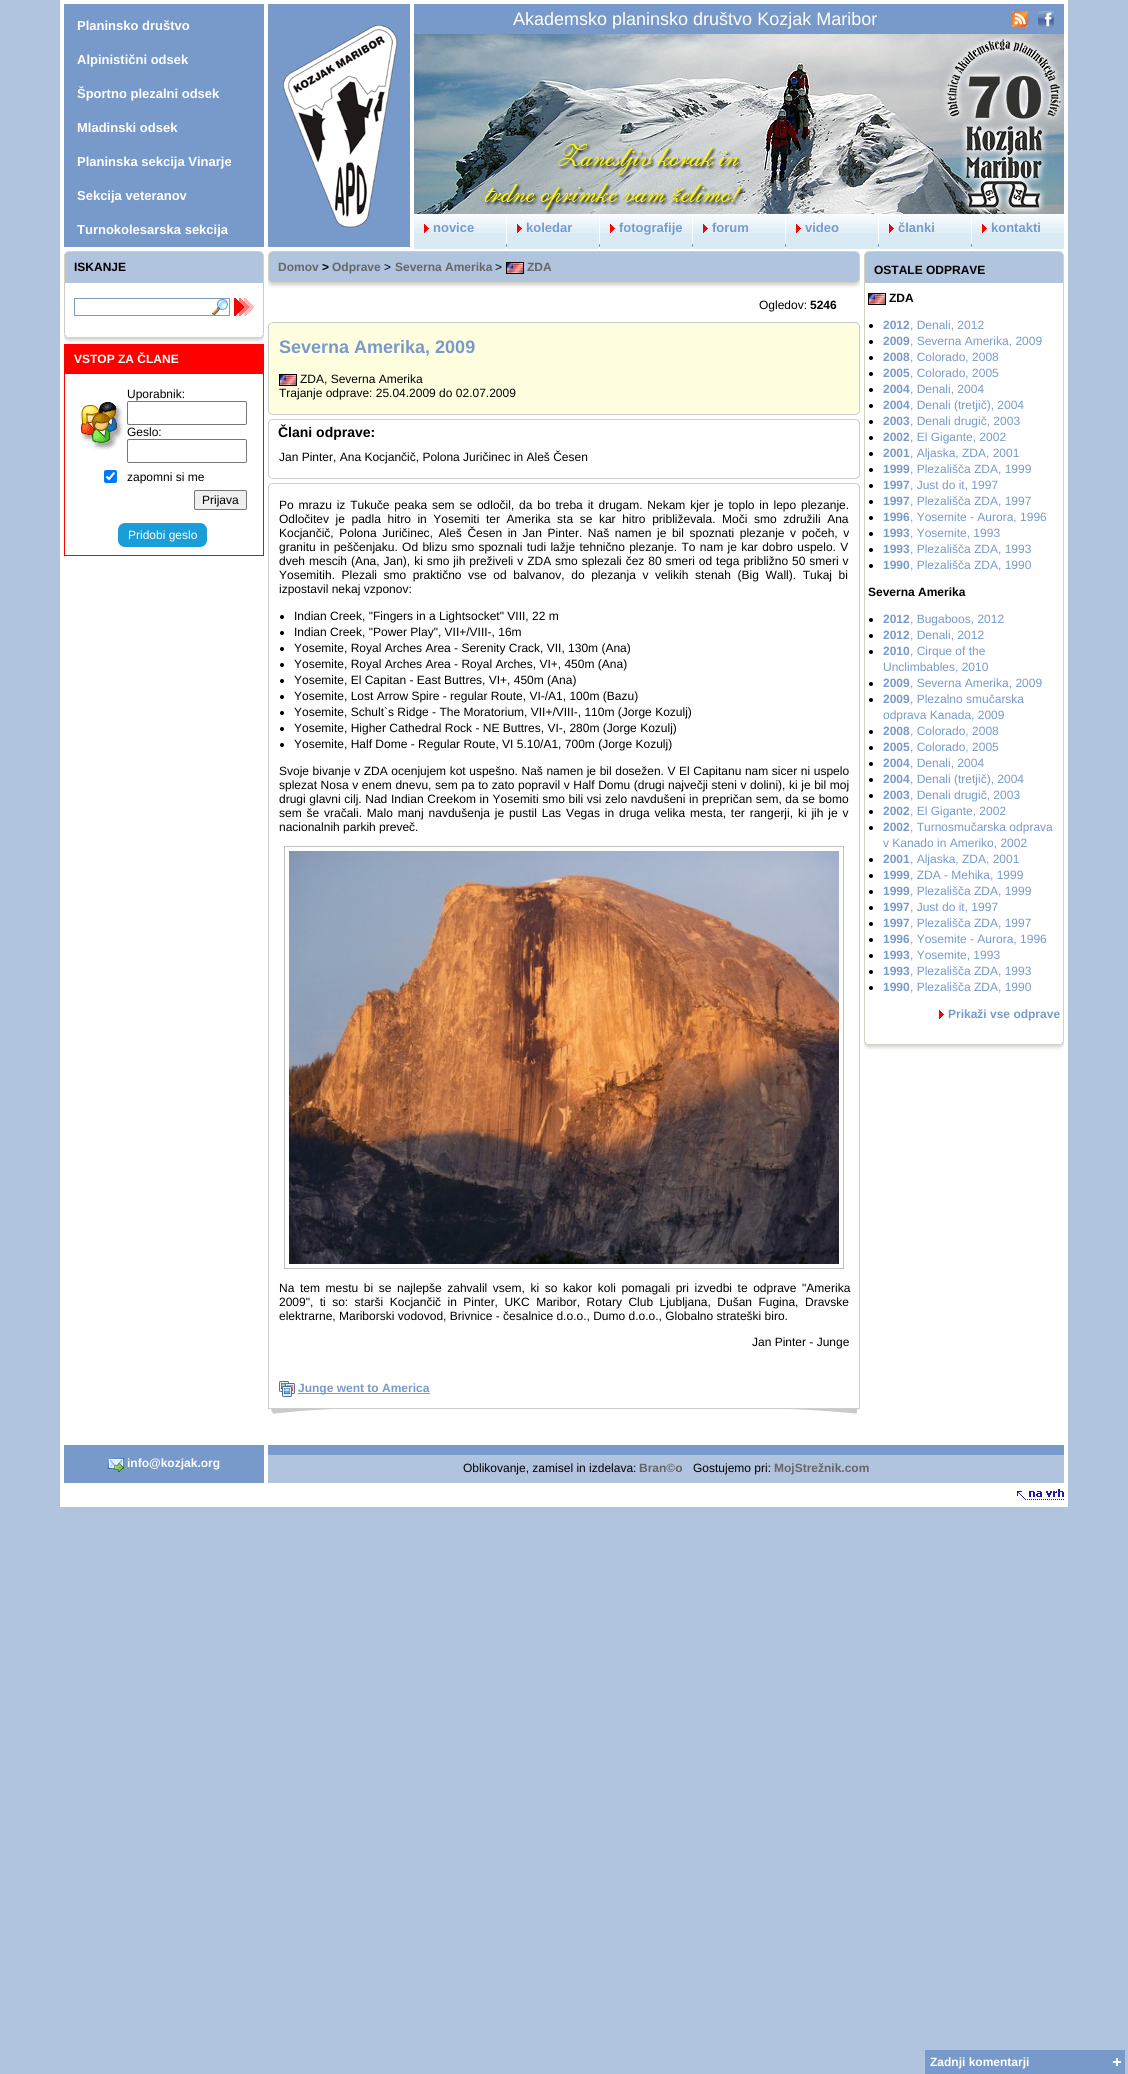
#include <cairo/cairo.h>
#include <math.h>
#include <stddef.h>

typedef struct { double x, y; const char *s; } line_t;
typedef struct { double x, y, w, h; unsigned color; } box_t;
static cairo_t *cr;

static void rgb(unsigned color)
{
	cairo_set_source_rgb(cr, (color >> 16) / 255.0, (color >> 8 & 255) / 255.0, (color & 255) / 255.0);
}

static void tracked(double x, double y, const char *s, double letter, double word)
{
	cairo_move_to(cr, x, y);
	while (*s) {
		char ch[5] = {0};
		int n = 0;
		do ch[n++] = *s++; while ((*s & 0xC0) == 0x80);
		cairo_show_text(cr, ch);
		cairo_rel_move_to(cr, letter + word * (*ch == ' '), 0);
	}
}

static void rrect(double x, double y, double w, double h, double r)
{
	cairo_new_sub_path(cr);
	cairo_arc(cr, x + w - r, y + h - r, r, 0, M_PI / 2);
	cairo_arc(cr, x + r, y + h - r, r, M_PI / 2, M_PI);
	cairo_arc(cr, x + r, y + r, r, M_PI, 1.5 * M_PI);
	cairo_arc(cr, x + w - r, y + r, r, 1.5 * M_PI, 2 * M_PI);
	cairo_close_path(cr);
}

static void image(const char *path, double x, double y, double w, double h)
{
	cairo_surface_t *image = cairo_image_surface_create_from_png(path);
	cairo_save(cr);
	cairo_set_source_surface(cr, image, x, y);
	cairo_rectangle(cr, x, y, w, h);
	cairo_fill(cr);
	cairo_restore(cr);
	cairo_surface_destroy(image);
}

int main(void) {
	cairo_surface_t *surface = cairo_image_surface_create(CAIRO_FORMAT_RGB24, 1128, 2074);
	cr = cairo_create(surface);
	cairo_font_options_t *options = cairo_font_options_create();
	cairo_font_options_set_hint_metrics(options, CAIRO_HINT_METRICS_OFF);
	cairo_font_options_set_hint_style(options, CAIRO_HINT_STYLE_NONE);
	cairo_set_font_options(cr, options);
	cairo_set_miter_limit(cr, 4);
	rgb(0xb0c4de);
	cairo_paint(cr);
	{
		static const box_t items[] = {
			{60, 0, 1008, 1507, 0xffffff},
			{64, 4, 1000, 243, 0x779acb},
			{264, 4, 4, 243, 0xffffff},
		};
		for (size_t i = 0; i < sizeof items / sizeof *items; i++) {
			rgb(items[i].color);
			cairo_rectangle(cr, items[i].x, items[i].y, items[i].w, items[i].h);
			cairo_fill(cr);
		}
	}
	image("img/1.png", 283, 25, 115, 203);
	cairo_rectangle(cr, 410, 4, 4, 243);
	cairo_fill(cr);
	image("img/2.png", 1012, 11, 16, 16);
	image("img/3.png", 1038, 11, 16, 16);
	image("img/4.png", 414, 34, 650, 180);
	image("img/5.png", 943, 35, 121, 179);
	image("img/6.png", 414, 214, 92, 35);
	image("img/7.png", 424, 224, 5, 9);
	cairo_rectangle(cr, 506, 214, 1, 30);
	cairo_fill(cr);
	image("img/6.png", 507, 214, 92, 35);
	image("img/7.png", 517, 224, 5, 9);
	cairo_rectangle(cr, 599, 214, 1, 30);
	cairo_fill(cr);
	image("img/6.png", 600, 214, 92, 35);
	image("img/7.png", 610, 224, 5, 9);
	cairo_rectangle(cr, 692, 214, 1, 30);
	cairo_fill(cr);
	image("img/6.png", 693, 214, 92, 35);
	image("img/7.png", 703, 224, 5, 9);
	cairo_rectangle(cr, 785, 214, 1, 30);
	cairo_fill(cr);
	image("img/6.png", 786, 214, 92, 35);
	image("img/7.png", 796, 224, 5, 9);
	cairo_rectangle(cr, 878, 214, 1, 30);
	cairo_fill(cr);
	image("img/6.png", 879, 214, 92, 35);
	image("img/7.png", 889, 224, 5, 9);
	cairo_rectangle(cr, 971, 214, 1, 30);
	cairo_fill(cr);
	image("img/6.png", 972, 214, 92, 35);
	image("img/7.png", 982, 224, 5, 9);
	rgb(0xb0c4de);
	cairo_rectangle(cr, 65, 252, 198, 31);
	cairo_fill(cr);
	image("img/8.png", 64, 251, 200, 32);
	rgb(0xcccccc);
	cairo_rectangle(cr, 263, 283, 1, 50);
	cairo_fill(cr);
	cairo_rectangle(cr, 64, 283, 1, 50);
	cairo_fill(cr);
	image("img/9.png", 212, 299, 16, 16);
	cairo_rectangle(cr, 74.5, 298.5, 155, 17);
	rgb(0x7f9db9);
	cairo_set_line_width(cr, 1);
	cairo_stroke(cr);
	image("img/10.png", 234, 298, 20, 18);
	image("img/11.png", 64, 333, 200, 10);
	{
		static const box_t items[] = {
			{64, 344, 200, 30, 0xff0000},
			{263, 374, 1, 182, 0xff0000},
			{64, 555, 200, 1, 0xff0000},
			{64, 374, 1, 182, 0xff0000},
		};
		for (size_t i = 0; i < sizeof items / sizeof *items; i++) {
			rgb(items[i].color);
			cairo_rectangle(cr, items[i].x, items[i].y, items[i].w, items[i].h);
			cairo_fill(cr);
		}
	}
	image("img/12.png", 80, 402, 43, 48);
	rrect(127.5, 401.5, 119, 23, 1.5);
	rgb(0x767676);
	cairo_stroke(cr);
	rrect(127.5, 439.5, 119, 23, 1.5);
	cairo_stroke(cr);
	rgb(0x0075ff);
	rrect(104, 470, 13, 13, 2);
	cairo_fill(cr);
	cairo_new_path(cr);
	cairo_move_to(cr, 106.5, 476.5);
	cairo_line_to(cr, 109, 479);
	cairo_line_to(cr, 114.5, 472.5);
	rgb(0xffffff);
	cairo_set_line_width(cr, 2.1);
	cairo_stroke(cr);
	rgb(0xefefef);
	rrect(194.5, 490.5, 52, 19, 1.5);
	cairo_fill_preserve(cr);
	rgb(0x767676);
	cairo_set_line_width(cr, 1);
	cairo_stroke(cr);
	rgb(0x1b9dd8);
	rrect(118, 523, 89, 24, 7);
	cairo_fill(cr);
	rgb(0xb0c4de);
	cairo_rectangle(cr, 269, 252, 590, 30);
	cairo_fill(cr);
	image("img/13.png", 268, 251, 592, 37);
	image("img/14.png", 506, 262, 18, 12);
	cairo_rectangle(cr, 865, 252, 198, 31);
	cairo_fill(cr);
	image("img/15.png", 864, 251, 200, 37);
	image("img/16.png", 268, 322, 592, 5);
	{
		static const box_t items[] = {
			{269, 327, 590, 83, 0xffffe0},
			{859, 327, 1, 83, 0xcccccc},
			{268, 327, 1, 83, 0xcccccc},
		};
		for (size_t i = 0; i < sizeof items / sizeof *items; i++) {
			rgb(items[i].color);
			cairo_rectangle(cr, items[i].x, items[i].y, items[i].w, items[i].h);
			cairo_fill(cr);
		}
	}
	image("img/14.png", 279, 374, 18, 12);
	image("img/17.png", 268, 410, 592, 5);
	image("img/18.png", 268, 419, 592, 21);
	cairo_rectangle(cr, 859, 440, 1, 34);
	cairo_fill(cr);
	cairo_rectangle(cr, 268, 440, 1, 34);
	cairo_fill(cr);
	image("img/19.png", 268, 474, 592, 5);
	image("img/20.png", 268, 483, 592, 5);
	cairo_rectangle(cr, 859, 488, 1, 919);
	cairo_fill(cr);
	cairo_rectangle(cr, 268, 488, 1, 919);
	cairo_fill(cr);
	rgb(0x000000);
	cairo_arc(cr, 282, 617, 2, 0, 2 * M_PI);
	cairo_fill(cr);
	cairo_arc(cr, 282, 633, 2, 0, 2 * M_PI);
	cairo_fill(cr);
	cairo_arc(cr, 282, 649, 2, 0, 2 * M_PI);
	cairo_fill(cr);
	cairo_arc(cr, 282, 665, 2, 0, 2 * M_PI);
	cairo_fill(cr);
	cairo_arc(cr, 282, 681, 2, 0, 2 * M_PI);
	cairo_fill(cr);
	cairo_arc(cr, 282, 697, 2, 0, 2 * M_PI);
	cairo_fill(cr);
	cairo_arc(cr, 282, 713, 2, 0, 2 * M_PI);
	cairo_fill(cr);
	cairo_arc(cr, 282, 729, 2, 0, 2 * M_PI);
	cairo_fill(cr);
	cairo_arc(cr, 282, 745, 2, 0, 2 * M_PI);
	cairo_fill(cr);
	cairo_rectangle(cr, 284.5, 846.5, 559, 422);
	rgb(0xc0c0c0);
	cairo_stroke(cr);
	image("img/21.png", 289, 851, 550, 413);
	image("img/22.png", 279, 1381, 16, 16);
	rgb(0x779acb);
	cairo_rectangle(cr, 298, 1393, 132, 1);
	cairo_fill(cr);
	image("img/23.png", 268, 1407, 592, 7);
	rgb(0xd3d2be);
	cairo_rectangle(cr, 1063, 288, 1, 748);
	cairo_fill(cr);
	cairo_rectangle(cr, 864, 288, 1, 748);
	cairo_fill(cr);
	image("img/14.png", 868, 293, 18, 12);
	rgb(0x000000);
	cairo_arc(cr, 871, 326, 2, 0, 2 * M_PI);
	cairo_fill(cr);
	cairo_arc(cr, 871, 342, 2, 0, 2 * M_PI);
	cairo_fill(cr);
	cairo_arc(cr, 871, 358, 2, 0, 2 * M_PI);
	cairo_fill(cr);
	cairo_arc(cr, 871, 374, 2, 0, 2 * M_PI);
	cairo_fill(cr);
	cairo_arc(cr, 871, 390, 2, 0, 2 * M_PI);
	cairo_fill(cr);
	cairo_arc(cr, 871, 406, 2, 0, 2 * M_PI);
	cairo_fill(cr);
	cairo_arc(cr, 871, 422, 2, 0, 2 * M_PI);
	cairo_fill(cr);
	cairo_arc(cr, 871, 438, 2, 0, 2 * M_PI);
	cairo_fill(cr);
	cairo_arc(cr, 871, 454, 2, 0, 2 * M_PI);
	cairo_fill(cr);
	cairo_arc(cr, 871, 470, 2, 0, 2 * M_PI);
	cairo_fill(cr);
	cairo_arc(cr, 871, 486, 2, 0, 2 * M_PI);
	cairo_fill(cr);
	cairo_arc(cr, 871, 502, 2, 0, 2 * M_PI);
	cairo_fill(cr);
	cairo_arc(cr, 871, 518, 2, 0, 2 * M_PI);
	cairo_fill(cr);
	cairo_arc(cr, 871, 534, 2, 0, 2 * M_PI);
	cairo_fill(cr);
	cairo_arc(cr, 871, 550, 2, 0, 2 * M_PI);
	cairo_fill(cr);
	cairo_arc(cr, 871, 566, 2, 0, 2 * M_PI);
	cairo_fill(cr);
	cairo_arc(cr, 871, 620, 2, 0, 2 * M_PI);
	cairo_fill(cr);
	cairo_arc(cr, 871, 636, 2, 0, 2 * M_PI);
	cairo_fill(cr);
	cairo_arc(cr, 871, 652, 2, 0, 2 * M_PI);
	cairo_fill(cr);
	cairo_arc(cr, 871, 684, 2, 0, 2 * M_PI);
	cairo_fill(cr);
	cairo_arc(cr, 871, 700, 2, 0, 2 * M_PI);
	cairo_fill(cr);
	cairo_arc(cr, 871, 732, 2, 0, 2 * M_PI);
	cairo_fill(cr);
	cairo_arc(cr, 871, 748, 2, 0, 2 * M_PI);
	cairo_fill(cr);
	cairo_arc(cr, 871, 764, 2, 0, 2 * M_PI);
	cairo_fill(cr);
	cairo_arc(cr, 871, 780, 2, 0, 2 * M_PI);
	cairo_fill(cr);
	cairo_arc(cr, 871, 796, 2, 0, 2 * M_PI);
	cairo_fill(cr);
	cairo_arc(cr, 871, 812, 2, 0, 2 * M_PI);
	cairo_fill(cr);
	cairo_arc(cr, 871, 828, 2, 0, 2 * M_PI);
	cairo_fill(cr);
	cairo_arc(cr, 871, 860, 2, 0, 2 * M_PI);
	cairo_fill(cr);
	cairo_arc(cr, 871, 876, 2, 0, 2 * M_PI);
	cairo_fill(cr);
	cairo_arc(cr, 871, 892, 2, 0, 2 * M_PI);
	cairo_fill(cr);
	cairo_arc(cr, 871, 908, 2, 0, 2 * M_PI);
	cairo_fill(cr);
	cairo_arc(cr, 871, 924, 2, 0, 2 * M_PI);
	cairo_fill(cr);
	cairo_arc(cr, 871, 940, 2, 0, 2 * M_PI);
	cairo_fill(cr);
	cairo_arc(cr, 871, 956, 2, 0, 2 * M_PI);
	cairo_fill(cr);
	cairo_arc(cr, 871, 972, 2, 0, 2 * M_PI);
	cairo_fill(cr);
	cairo_arc(cr, 871, 988, 2, 0, 2 * M_PI);
	cairo_fill(cr);
	image("img/24.png", 939, 1010, 5, 9);
	image("img/25.png", 864, 1036, 200, 14);
	rgb(0x779acb);
	cairo_rectangle(cr, 64, 1445, 200, 38);
	cairo_fill(cr);
	image("img/26.png", 108, 1458, 16, 14);
	rgb(0xb0c4de);
	cairo_rectangle(cr, 268, 1455, 796, 28);
	cairo_fill(cr);
	rgb(0x779acb);
	cairo_rectangle(cr, 268, 1445, 796, 10);
	cairo_fill(cr);
	image("img/27.png", 1017, 1489, 47, 11);
	cairo_rectangle(cr, 925, 2050, 200, 24);
	cairo_fill(cr);
	image("img/28.png", 1113, 2058, 8, 8);
	cairo_select_font_face(cr, "Liberation Sans", CAIRO_FONT_SLANT_NORMAL, CAIRO_FONT_WEIGHT_BOLD);
	cairo_set_font_size(cr, 13);
	rgb(0xffffff);
	{
		static const line_t items[] = {
			{77, 30, "Planinsko društvo"},
			{77, 64, "Alpinistični odsek"},
			{77, 98, "Športno plezalni odsek"},
			{77, 132, "Mladinski odsek"},
			{77, 166, "Planinska sekcija Vinarje"},
			{77, 200, "Sekcija veteranov"},
			{77, 234, "Turnokolesarska sekcija"},
		};
		for (size_t i = 0; i < sizeof items / sizeof *items; i++) {
			cairo_move_to(cr, items[i].x, items[i].y);
			cairo_show_text(cr, items[i].s);
		}
	}
	cairo_select_font_face(cr, "Liberation Sans", CAIRO_FONT_SLANT_NORMAL, CAIRO_FONT_WEIGHT_NORMAL);
	cairo_set_font_size(cr, 18);
	cairo_move_to(cr, 513, 25);
	cairo_show_text(cr, "Akademsko planinsko društvo Kozjak Maribor");
	cairo_select_font_face(cr, "Liberation Sans", CAIRO_FONT_SLANT_NORMAL, CAIRO_FONT_WEIGHT_BOLD);
	cairo_set_font_size(cr, 13);
	rgb(0x779acb);
	{
		static const line_t items[] = {
			{433, 232, "novice"},
			{526, 232, "koledar"},
			{619, 232, "fotografije"},
			{712, 232, "forum"},
			{805, 232, "video"},
			{898, 232, "članki"},
			{991, 232, "kontakti"},
		};
		for (size_t i = 0; i < sizeof items / sizeof *items; i++) {
			cairo_move_to(cr, items[i].x, items[i].y);
			cairo_show_text(cr, items[i].s);
		}
	}
	cairo_set_font_size(cr, 12);
	rgb(0x000000);
	cairo_move_to(cr, 74, 271);
	cairo_show_text(cr, "ISKANJE");
	rgb(0xffffff);
	cairo_move_to(cr, 74, 363);
	cairo_show_text(cr, "VSTOP ZA ČLANE");
	cairo_select_font_face(cr, "Liberation Sans", CAIRO_FONT_SLANT_NORMAL, CAIRO_FONT_WEIGHT_NORMAL);
	rgb(0x000000);
	{
		static const line_t items[] = {
			{127, 398, "Uporabnik:"},
			{127, 436, "Geslo:"},
			{127, 481, "zapomni si me"},
			{202, 504, "Prijava"},
		};
		for (size_t i = 0; i < sizeof items / sizeof *items; i++) {
			cairo_move_to(cr, items[i].x, items[i].y);
			cairo_show_text(cr, items[i].s);
		}
	}
	rgb(0xffffff);
	cairo_move_to(cr, 128, 539);
	cairo_show_text(cr, "Pridobi geslo");
	cairo_select_font_face(cr, "Liberation Sans", CAIRO_FONT_SLANT_NORMAL, CAIRO_FONT_WEIGHT_BOLD);
	rgb(0x666666);
	cairo_move_to(cr, 278, 271);
	cairo_show_text(cr, "Domov");
	rgb(0x000000);
	cairo_move_to(cr, 322, 271);
	cairo_show_text(cr, ">");
	rgb(0x666666);
	cairo_move_to(cr, 332, 271);
	cairo_show_text(cr, "Odprave");
	cairo_select_font_face(cr, "Liberation Sans", CAIRO_FONT_SLANT_NORMAL, CAIRO_FONT_WEIGHT_NORMAL);
	rgb(0x000000);
	cairo_move_to(cr, 384, 271);
	cairo_show_text(cr, ">");
	cairo_select_font_face(cr, "Liberation Sans", CAIRO_FONT_SLANT_NORMAL, CAIRO_FONT_WEIGHT_BOLD);
	rgb(0x666666);
	cairo_move_to(cr, 395, 271);
	cairo_show_text(cr, "Severna Amerika");
	cairo_select_font_face(cr, "Liberation Sans", CAIRO_FONT_SLANT_NORMAL, CAIRO_FONT_WEIGHT_NORMAL);
	rgb(0x000000);
	cairo_move_to(cr, 495, 271);
	cairo_show_text(cr, ">");
	cairo_select_font_face(cr, "Liberation Sans", CAIRO_FONT_SLANT_NORMAL, CAIRO_FONT_WEIGHT_BOLD);
	rgb(0x666666);
	cairo_move_to(cr, 527, 271);
	cairo_show_text(cr, "ZDA");
	rgb(0x000000);
	cairo_move_to(cr, 874, 274);
	cairo_show_text(cr, "OSTALE ODPRAVE");
	cairo_select_font_face(cr, "Liberation Sans", CAIRO_FONT_SLANT_NORMAL, CAIRO_FONT_WEIGHT_NORMAL);
	cairo_move_to(cr, 759, 309);
	cairo_show_text(cr, "Ogledov:");
	cairo_select_font_face(cr, "Liberation Sans", CAIRO_FONT_SLANT_NORMAL, CAIRO_FONT_WEIGHT_BOLD);
	cairo_move_to(cr, 810, 309);
	cairo_show_text(cr, "5246");
	cairo_set_font_size(cr, 18);
	rgb(0x779acb);
	cairo_move_to(cr, 279, 353);
	cairo_show_text(cr, "Severna Amerika, 2009");
	cairo_select_font_face(cr, "Liberation Sans", CAIRO_FONT_SLANT_NORMAL, CAIRO_FONT_WEIGHT_NORMAL);
	cairo_set_font_size(cr, 12);
	rgb(0x000000);
	cairo_move_to(cr, 300, 383);
	cairo_show_text(cr, "ZDA, Severna Amerika");
	cairo_move_to(cr, 279, 397);
	cairo_show_text(cr, "Trajanje odprave: 25.04.2009 do 02.07.2009");
	cairo_select_font_face(cr, "Liberation Sans", CAIRO_FONT_SLANT_NORMAL, CAIRO_FONT_WEIGHT_BOLD);
	cairo_set_font_size(cr, 14);
	cairo_move_to(cr, 278, 437);
	cairo_show_text(cr, "Člani odprave:");
	cairo_select_font_face(cr, "Liberation Sans", CAIRO_FONT_SLANT_NORMAL, CAIRO_FONT_WEIGHT_NORMAL);
	cairo_set_font_size(cr, 12);
	cairo_move_to(cr, 279, 461);
	cairo_show_text(cr, "Jan Pinter, Ana Kocjančič, Polona Juričinec in Aleš Česen");
	tracked(279, 509, "Po mrazu iz Tukuče peaka sem se odločil, da bo treba it drugam. Nekam kjer je toplo in lepo plezanje.", 0, 1.5);
	tracked(279, 523, "Odločitev je padla hitro in Yosemiti ter Amerika sta se kar hitro približevala. Moči smo združili Ana", 0, 3.25);
	tracked(279, 537, "Kocjančič, Polona Juričinec, Aleš Česen in Jan Pinter. Naš namen je bil spoznati plezanje v počeh, v", 0, 2.25);
	tracked(279, 551, "granitu in peščenjaku. Od blizu smo spoznali tudi lažje tehnično plezanje. To nam je kar dobro uspelo. V", 0, 1);
	tracked(279, 565, "dveh mescih (Ana, Jan), ki smo jih preživeli v ZDA smo splezali čez 80 smeri od tega približno 50 smeri v", 0, 0.6);
	tracked(279, 579, "Yosemitih. Plezali smo praktično vse od balvanov, do plezanja v velikih stenah (Big Wall). Tukaj bi", 0, 3.25);
	{
		static const line_t items[] = {
			{279, 593, "izpostavil nekaj vzponov:"},
			{294, 620, "Indian Creek, \"Fingers in a Lightsocket\" VIII, 22 m"},
			{294, 636, "Indian Creek, \"Power Play\", VII+/VIII-, 16m"},
			{294, 652, "Yosemite, Royal Arches Area - Serenity Crack, VII, 130m (Ana)"},
			{294, 668, "Yosemite, Royal Arches Area - Royal Arches, VI+, 450m (Ana)"},
			{294, 684, "Yosemite, El Capitan - East Buttres, VI+, 450m (Ana)"},
			{294, 700, "Yosemite, Lost Arrow Spire - regular Route, VI-/A1, 100m (Bazu)"},
			{294, 716, "Yosemite, Schult`s Ridge - The Moratorium, VII+/VIII-, 110m (Jorge Kozulj)"},
			{294, 732, "Yosemite, Higher Cathedral Rock - NE Buttres, VI-, 280m (Jorge Kozulj)"},
			{294, 748, "Yosemite, Half Dome - Regular Route, VI 5.10/A1, 700m (Jorge Kozulj)"},
		};
		for (size_t i = 0; i < sizeof items / sizeof *items; i++) {
			cairo_move_to(cr, items[i].x, items[i].y);
			cairo_show_text(cr, items[i].s);
		}
	}
	tracked(279, 775, "Svoje bivanje v ZDA ocenjujem kot uspešno. Naš namen je bil dosežen. V El Capitanu nam sicer ni uspelo", 0, 0.25);
	tracked(279, 789, "splezat Nosa v enem dnevu, sem pa to zato popravil v Half Domu (drugi največji steni v dolini), ki je bil moj", 0, 0.25);
	tracked(279, 803, "drugi glavni cilj. Nad Indian Creekom in Yosemiti smo bili vsi zelo navdušeni in prepričan sem, da se bomo", 0, 0.3);
	tracked(279, 817, "sem še vračali. Malo manj navdušenja je pustil Las Vegas in druga velika mesta, ter rangerji, ki jih je v", 0, 1.5);
	cairo_move_to(cr, 279, 831);
	cairo_show_text(cr, "nacionalnih parkih preveč.");
	tracked(279, 1292, "Na tem mestu bi se najlepše zahvalil vsem, ki so kakor koli pomagali pri izvedbi te odprave \"Amerika", 0, 2.25);
	tracked(279, 1306, "2009\", ti so: starši Kocjančič in Pinter, UKC Maribor, Rotary Club Ljubljana, Dušan Fugina,", 0, 3.1);
	{
		static const line_t items[] = {
			{805, 1306, "Dravske"},
			{279, 1320, "elektrarne, Mariborski vodovod, Brivnice - česalnice d.o.o., Dumo d.o.o., Globalno strateški biro."},
			{752, 1346, "Jan Pinter - Junge"},
		};
		for (size_t i = 0; i < sizeof items / sizeof *items; i++) {
			cairo_move_to(cr, items[i].x, items[i].y);
			cairo_show_text(cr, items[i].s);
		}
	}
	cairo_select_font_face(cr, "Liberation Sans", CAIRO_FONT_SLANT_NORMAL, CAIRO_FONT_WEIGHT_BOLD);
	rgb(0x779acb);
	cairo_move_to(cr, 298, 1392);
	cairo_show_text(cr, "Junge went to America");
	rgb(0x000000);
	cairo_move_to(cr, 889, 302);
	cairo_show_text(cr, "ZDA");
	rgb(0x779acb);
	cairo_move_to(cr, 883, 329);
	cairo_show_text(cr, "2012");
	cairo_select_font_face(cr, "Liberation Sans", CAIRO_FONT_SLANT_NORMAL, CAIRO_FONT_WEIGHT_NORMAL);
	cairo_move_to(cr, 910, 329);
	cairo_show_text(cr, ", Denali, 2012");
	cairo_select_font_face(cr, "Liberation Sans", CAIRO_FONT_SLANT_NORMAL, CAIRO_FONT_WEIGHT_BOLD);
	cairo_move_to(cr, 883, 345);
	cairo_show_text(cr, "2009");
	cairo_select_font_face(cr, "Liberation Sans", CAIRO_FONT_SLANT_NORMAL, CAIRO_FONT_WEIGHT_NORMAL);
	cairo_move_to(cr, 910, 345);
	cairo_show_text(cr, ", Severna Amerika, 2009");
	cairo_select_font_face(cr, "Liberation Sans", CAIRO_FONT_SLANT_NORMAL, CAIRO_FONT_WEIGHT_BOLD);
	cairo_move_to(cr, 883, 361);
	cairo_show_text(cr, "2008");
	cairo_select_font_face(cr, "Liberation Sans", CAIRO_FONT_SLANT_NORMAL, CAIRO_FONT_WEIGHT_NORMAL);
	cairo_move_to(cr, 910, 361);
	cairo_show_text(cr, ", Colorado, 2008");
	cairo_select_font_face(cr, "Liberation Sans", CAIRO_FONT_SLANT_NORMAL, CAIRO_FONT_WEIGHT_BOLD);
	cairo_move_to(cr, 883, 377);
	cairo_show_text(cr, "2005");
	cairo_select_font_face(cr, "Liberation Sans", CAIRO_FONT_SLANT_NORMAL, CAIRO_FONT_WEIGHT_NORMAL);
	cairo_move_to(cr, 910, 377);
	cairo_show_text(cr, ", Colorado, 2005");
	cairo_select_font_face(cr, "Liberation Sans", CAIRO_FONT_SLANT_NORMAL, CAIRO_FONT_WEIGHT_BOLD);
	cairo_move_to(cr, 883, 393);
	cairo_show_text(cr, "2004");
	cairo_select_font_face(cr, "Liberation Sans", CAIRO_FONT_SLANT_NORMAL, CAIRO_FONT_WEIGHT_NORMAL);
	cairo_move_to(cr, 910, 393);
	cairo_show_text(cr, ", Denali, 2004");
	cairo_select_font_face(cr, "Liberation Sans", CAIRO_FONT_SLANT_NORMAL, CAIRO_FONT_WEIGHT_BOLD);
	cairo_move_to(cr, 883, 409);
	cairo_show_text(cr, "2004");
	cairo_select_font_face(cr, "Liberation Sans", CAIRO_FONT_SLANT_NORMAL, CAIRO_FONT_WEIGHT_NORMAL);
	cairo_move_to(cr, 910, 409);
	cairo_show_text(cr, ", Denali (tretjič), 2004");
	cairo_select_font_face(cr, "Liberation Sans", CAIRO_FONT_SLANT_NORMAL, CAIRO_FONT_WEIGHT_BOLD);
	cairo_move_to(cr, 883, 425);
	cairo_show_text(cr, "2003");
	cairo_select_font_face(cr, "Liberation Sans", CAIRO_FONT_SLANT_NORMAL, CAIRO_FONT_WEIGHT_NORMAL);
	cairo_move_to(cr, 910, 425);
	cairo_show_text(cr, ", Denali drugič, 2003");
	cairo_select_font_face(cr, "Liberation Sans", CAIRO_FONT_SLANT_NORMAL, CAIRO_FONT_WEIGHT_BOLD);
	cairo_move_to(cr, 883, 441);
	cairo_show_text(cr, "2002");
	cairo_select_font_face(cr, "Liberation Sans", CAIRO_FONT_SLANT_NORMAL, CAIRO_FONT_WEIGHT_NORMAL);
	cairo_move_to(cr, 910, 441);
	cairo_show_text(cr, ", El Gigante, 2002");
	cairo_select_font_face(cr, "Liberation Sans", CAIRO_FONT_SLANT_NORMAL, CAIRO_FONT_WEIGHT_BOLD);
	cairo_move_to(cr, 883, 457);
	cairo_show_text(cr, "2001");
	cairo_select_font_face(cr, "Liberation Sans", CAIRO_FONT_SLANT_NORMAL, CAIRO_FONT_WEIGHT_NORMAL);
	cairo_move_to(cr, 910, 457);
	cairo_show_text(cr, ", Aljaska, ZDA, 2001");
	cairo_select_font_face(cr, "Liberation Sans", CAIRO_FONT_SLANT_NORMAL, CAIRO_FONT_WEIGHT_BOLD);
	cairo_move_to(cr, 883, 473);
	cairo_show_text(cr, "1999");
	cairo_select_font_face(cr, "Liberation Sans", CAIRO_FONT_SLANT_NORMAL, CAIRO_FONT_WEIGHT_NORMAL);
	cairo_move_to(cr, 910, 473);
	cairo_show_text(cr, ", Plezališča ZDA, 1999");
	cairo_select_font_face(cr, "Liberation Sans", CAIRO_FONT_SLANT_NORMAL, CAIRO_FONT_WEIGHT_BOLD);
	cairo_move_to(cr, 883, 489);
	cairo_show_text(cr, "1997");
	cairo_select_font_face(cr, "Liberation Sans", CAIRO_FONT_SLANT_NORMAL, CAIRO_FONT_WEIGHT_NORMAL);
	cairo_move_to(cr, 910, 489);
	cairo_show_text(cr, ", Just do it, 1997");
	cairo_select_font_face(cr, "Liberation Sans", CAIRO_FONT_SLANT_NORMAL, CAIRO_FONT_WEIGHT_BOLD);
	cairo_move_to(cr, 883, 505);
	cairo_show_text(cr, "1997");
	cairo_select_font_face(cr, "Liberation Sans", CAIRO_FONT_SLANT_NORMAL, CAIRO_FONT_WEIGHT_NORMAL);
	cairo_move_to(cr, 910, 505);
	cairo_show_text(cr, ", Plezališča ZDA, 1997");
	cairo_select_font_face(cr, "Liberation Sans", CAIRO_FONT_SLANT_NORMAL, CAIRO_FONT_WEIGHT_BOLD);
	cairo_move_to(cr, 883, 521);
	cairo_show_text(cr, "1996");
	cairo_select_font_face(cr, "Liberation Sans", CAIRO_FONT_SLANT_NORMAL, CAIRO_FONT_WEIGHT_NORMAL);
	cairo_move_to(cr, 910, 521);
	cairo_show_text(cr, ", Yosemite - Aurora, 1996");
	cairo_select_font_face(cr, "Liberation Sans", CAIRO_FONT_SLANT_NORMAL, CAIRO_FONT_WEIGHT_BOLD);
	cairo_move_to(cr, 883, 537);
	cairo_show_text(cr, "1993");
	cairo_select_font_face(cr, "Liberation Sans", CAIRO_FONT_SLANT_NORMAL, CAIRO_FONT_WEIGHT_NORMAL);
	cairo_move_to(cr, 910, 537);
	cairo_show_text(cr, ", Yosemite, 1993");
	cairo_select_font_face(cr, "Liberation Sans", CAIRO_FONT_SLANT_NORMAL, CAIRO_FONT_WEIGHT_BOLD);
	cairo_move_to(cr, 883, 553);
	cairo_show_text(cr, "1993");
	cairo_select_font_face(cr, "Liberation Sans", CAIRO_FONT_SLANT_NORMAL, CAIRO_FONT_WEIGHT_NORMAL);
	cairo_move_to(cr, 910, 553);
	cairo_show_text(cr, ", Plezališča ZDA, 1993");
	cairo_select_font_face(cr, "Liberation Sans", CAIRO_FONT_SLANT_NORMAL, CAIRO_FONT_WEIGHT_BOLD);
	cairo_move_to(cr, 883, 569);
	cairo_show_text(cr, "1990");
	cairo_select_font_face(cr, "Liberation Sans", CAIRO_FONT_SLANT_NORMAL, CAIRO_FONT_WEIGHT_NORMAL);
	cairo_move_to(cr, 910, 569);
	cairo_show_text(cr, ", Plezališča ZDA, 1990");
	cairo_select_font_face(cr, "Liberation Sans", CAIRO_FONT_SLANT_NORMAL, CAIRO_FONT_WEIGHT_BOLD);
	rgb(0x000000);
	cairo_move_to(cr, 868, 596);
	cairo_show_text(cr, "Severna Amerika");
	rgb(0x779acb);
	cairo_move_to(cr, 883, 623);
	cairo_show_text(cr, "2012");
	cairo_select_font_face(cr, "Liberation Sans", CAIRO_FONT_SLANT_NORMAL, CAIRO_FONT_WEIGHT_NORMAL);
	cairo_move_to(cr, 910, 623);
	cairo_show_text(cr, ", Bugaboos, 2012");
	cairo_select_font_face(cr, "Liberation Sans", CAIRO_FONT_SLANT_NORMAL, CAIRO_FONT_WEIGHT_BOLD);
	cairo_move_to(cr, 883, 639);
	cairo_show_text(cr, "2012");
	cairo_select_font_face(cr, "Liberation Sans", CAIRO_FONT_SLANT_NORMAL, CAIRO_FONT_WEIGHT_NORMAL);
	cairo_move_to(cr, 910, 639);
	cairo_show_text(cr, ", Denali, 2012");
	cairo_select_font_face(cr, "Liberation Sans", CAIRO_FONT_SLANT_NORMAL, CAIRO_FONT_WEIGHT_BOLD);
	cairo_move_to(cr, 883, 655);
	cairo_show_text(cr, "2010");
	cairo_select_font_face(cr, "Liberation Sans", CAIRO_FONT_SLANT_NORMAL, CAIRO_FONT_WEIGHT_NORMAL);
	cairo_move_to(cr, 910, 655);
	cairo_show_text(cr, ", Cirque of the");
	cairo_move_to(cr, 883, 671);
	cairo_show_text(cr, "Unclimbables, 2010");
	cairo_select_font_face(cr, "Liberation Sans", CAIRO_FONT_SLANT_NORMAL, CAIRO_FONT_WEIGHT_BOLD);
	cairo_move_to(cr, 883, 687);
	cairo_show_text(cr, "2009");
	cairo_select_font_face(cr, "Liberation Sans", CAIRO_FONT_SLANT_NORMAL, CAIRO_FONT_WEIGHT_NORMAL);
	cairo_move_to(cr, 910, 687);
	cairo_show_text(cr, ", Severna Amerika, 2009");
	cairo_select_font_face(cr, "Liberation Sans", CAIRO_FONT_SLANT_NORMAL, CAIRO_FONT_WEIGHT_BOLD);
	cairo_move_to(cr, 883, 703);
	cairo_show_text(cr, "2009");
	cairo_select_font_face(cr, "Liberation Sans", CAIRO_FONT_SLANT_NORMAL, CAIRO_FONT_WEIGHT_NORMAL);
	cairo_move_to(cr, 910, 703);
	cairo_show_text(cr, ", Plezalno smučarska");
	cairo_move_to(cr, 883, 719);
	cairo_show_text(cr, "odprava Kanada, 2009");
	cairo_select_font_face(cr, "Liberation Sans", CAIRO_FONT_SLANT_NORMAL, CAIRO_FONT_WEIGHT_BOLD);
	cairo_move_to(cr, 883, 735);
	cairo_show_text(cr, "2008");
	cairo_select_font_face(cr, "Liberation Sans", CAIRO_FONT_SLANT_NORMAL, CAIRO_FONT_WEIGHT_NORMAL);
	cairo_move_to(cr, 910, 735);
	cairo_show_text(cr, ", Colorado, 2008");
	cairo_select_font_face(cr, "Liberation Sans", CAIRO_FONT_SLANT_NORMAL, CAIRO_FONT_WEIGHT_BOLD);
	cairo_move_to(cr, 883, 751);
	cairo_show_text(cr, "2005");
	cairo_select_font_face(cr, "Liberation Sans", CAIRO_FONT_SLANT_NORMAL, CAIRO_FONT_WEIGHT_NORMAL);
	cairo_move_to(cr, 910, 751);
	cairo_show_text(cr, ", Colorado, 2005");
	cairo_select_font_face(cr, "Liberation Sans", CAIRO_FONT_SLANT_NORMAL, CAIRO_FONT_WEIGHT_BOLD);
	cairo_move_to(cr, 883, 767);
	cairo_show_text(cr, "2004");
	cairo_select_font_face(cr, "Liberation Sans", CAIRO_FONT_SLANT_NORMAL, CAIRO_FONT_WEIGHT_NORMAL);
	cairo_move_to(cr, 910, 767);
	cairo_show_text(cr, ", Denali, 2004");
	cairo_select_font_face(cr, "Liberation Sans", CAIRO_FONT_SLANT_NORMAL, CAIRO_FONT_WEIGHT_BOLD);
	cairo_move_to(cr, 883, 783);
	cairo_show_text(cr, "2004");
	cairo_select_font_face(cr, "Liberation Sans", CAIRO_FONT_SLANT_NORMAL, CAIRO_FONT_WEIGHT_NORMAL);
	cairo_move_to(cr, 910, 783);
	cairo_show_text(cr, ", Denali (tretjič), 2004");
	cairo_select_font_face(cr, "Liberation Sans", CAIRO_FONT_SLANT_NORMAL, CAIRO_FONT_WEIGHT_BOLD);
	cairo_move_to(cr, 883, 799);
	cairo_show_text(cr, "2003");
	cairo_select_font_face(cr, "Liberation Sans", CAIRO_FONT_SLANT_NORMAL, CAIRO_FONT_WEIGHT_NORMAL);
	cairo_move_to(cr, 910, 799);
	cairo_show_text(cr, ", Denali drugič, 2003");
	cairo_select_font_face(cr, "Liberation Sans", CAIRO_FONT_SLANT_NORMAL, CAIRO_FONT_WEIGHT_BOLD);
	cairo_move_to(cr, 883, 815);
	cairo_show_text(cr, "2002");
	cairo_select_font_face(cr, "Liberation Sans", CAIRO_FONT_SLANT_NORMAL, CAIRO_FONT_WEIGHT_NORMAL);
	cairo_move_to(cr, 910, 815);
	cairo_show_text(cr, ", El Gigante, 2002");
	cairo_select_font_face(cr, "Liberation Sans", CAIRO_FONT_SLANT_NORMAL, CAIRO_FONT_WEIGHT_BOLD);
	cairo_move_to(cr, 883, 831);
	cairo_show_text(cr, "2002");
	cairo_select_font_face(cr, "Liberation Sans", CAIRO_FONT_SLANT_NORMAL, CAIRO_FONT_WEIGHT_NORMAL);
	cairo_move_to(cr, 910, 831);
	cairo_show_text(cr, ", Turnosmučarska odprava");
	cairo_move_to(cr, 883, 847);
	cairo_show_text(cr, "v Kanado in Ameriko, 2002");
	cairo_select_font_face(cr, "Liberation Sans", CAIRO_FONT_SLANT_NORMAL, CAIRO_FONT_WEIGHT_BOLD);
	cairo_move_to(cr, 883, 863);
	cairo_show_text(cr, "2001");
	cairo_select_font_face(cr, "Liberation Sans", CAIRO_FONT_SLANT_NORMAL, CAIRO_FONT_WEIGHT_NORMAL);
	cairo_move_to(cr, 910, 863);
	cairo_show_text(cr, ", Aljaska, ZDA, 2001");
	cairo_select_font_face(cr, "Liberation Sans", CAIRO_FONT_SLANT_NORMAL, CAIRO_FONT_WEIGHT_BOLD);
	cairo_move_to(cr, 883, 879);
	cairo_show_text(cr, "1999");
	cairo_select_font_face(cr, "Liberation Sans", CAIRO_FONT_SLANT_NORMAL, CAIRO_FONT_WEIGHT_NORMAL);
	cairo_move_to(cr, 910, 879);
	cairo_show_text(cr, ", ZDA - Mehika, 1999");
	cairo_select_font_face(cr, "Liberation Sans", CAIRO_FONT_SLANT_NORMAL, CAIRO_FONT_WEIGHT_BOLD);
	cairo_move_to(cr, 883, 895);
	cairo_show_text(cr, "1999");
	cairo_select_font_face(cr, "Liberation Sans", CAIRO_FONT_SLANT_NORMAL, CAIRO_FONT_WEIGHT_NORMAL);
	cairo_move_to(cr, 910, 895);
	cairo_show_text(cr, ", Plezališča ZDA, 1999");
	cairo_select_font_face(cr, "Liberation Sans", CAIRO_FONT_SLANT_NORMAL, CAIRO_FONT_WEIGHT_BOLD);
	cairo_move_to(cr, 883, 911);
	cairo_show_text(cr, "1997");
	cairo_select_font_face(cr, "Liberation Sans", CAIRO_FONT_SLANT_NORMAL, CAIRO_FONT_WEIGHT_NORMAL);
	cairo_move_to(cr, 910, 911);
	cairo_show_text(cr, ", Just do it, 1997");
	cairo_select_font_face(cr, "Liberation Sans", CAIRO_FONT_SLANT_NORMAL, CAIRO_FONT_WEIGHT_BOLD);
	cairo_move_to(cr, 883, 927);
	cairo_show_text(cr, "1997");
	cairo_select_font_face(cr, "Liberation Sans", CAIRO_FONT_SLANT_NORMAL, CAIRO_FONT_WEIGHT_NORMAL);
	cairo_move_to(cr, 910, 927);
	cairo_show_text(cr, ", Plezališča ZDA, 1997");
	cairo_select_font_face(cr, "Liberation Sans", CAIRO_FONT_SLANT_NORMAL, CAIRO_FONT_WEIGHT_BOLD);
	cairo_move_to(cr, 883, 943);
	cairo_show_text(cr, "1996");
	cairo_select_font_face(cr, "Liberation Sans", CAIRO_FONT_SLANT_NORMAL, CAIRO_FONT_WEIGHT_NORMAL);
	cairo_move_to(cr, 910, 943);
	cairo_show_text(cr, ", Yosemite - Aurora, 1996");
	cairo_select_font_face(cr, "Liberation Sans", CAIRO_FONT_SLANT_NORMAL, CAIRO_FONT_WEIGHT_BOLD);
	cairo_move_to(cr, 883, 959);
	cairo_show_text(cr, "1993");
	cairo_select_font_face(cr, "Liberation Sans", CAIRO_FONT_SLANT_NORMAL, CAIRO_FONT_WEIGHT_NORMAL);
	cairo_move_to(cr, 910, 959);
	cairo_show_text(cr, ", Yosemite, 1993");
	cairo_select_font_face(cr, "Liberation Sans", CAIRO_FONT_SLANT_NORMAL, CAIRO_FONT_WEIGHT_BOLD);
	cairo_move_to(cr, 883, 975);
	cairo_show_text(cr, "1993");
	cairo_select_font_face(cr, "Liberation Sans", CAIRO_FONT_SLANT_NORMAL, CAIRO_FONT_WEIGHT_NORMAL);
	cairo_move_to(cr, 910, 975);
	cairo_show_text(cr, ", Plezališča ZDA, 1993");
	cairo_select_font_face(cr, "Liberation Sans", CAIRO_FONT_SLANT_NORMAL, CAIRO_FONT_WEIGHT_BOLD);
	cairo_move_to(cr, 883, 991);
	cairo_show_text(cr, "1990");
	cairo_select_font_face(cr, "Liberation Sans", CAIRO_FONT_SLANT_NORMAL, CAIRO_FONT_WEIGHT_NORMAL);
	cairo_move_to(cr, 910, 991);
	cairo_show_text(cr, ", Plezališča ZDA, 1990");
	cairo_select_font_face(cr, "Liberation Sans", CAIRO_FONT_SLANT_NORMAL, CAIRO_FONT_WEIGHT_BOLD);
	cairo_move_to(cr, 948, 1018);
	cairo_show_text(cr, "Prikaži vse odprave");
	rgb(0xffffff);
	cairo_move_to(cr, 127, 1467);
	cairo_show_text(cr, "info@kozjak.org");
	cairo_select_font_face(cr, "Liberation Sans", CAIRO_FONT_SLANT_NORMAL, CAIRO_FONT_WEIGHT_NORMAL);
	rgb(0x000000);
	cairo_move_to(cr, 463, 1472);
	cairo_show_text(cr, "Oblikovanje, zamisel in izdelava:");
	cairo_select_font_face(cr, "Liberation Sans", CAIRO_FONT_SLANT_NORMAL, CAIRO_FONT_WEIGHT_BOLD);
	rgb(0x666666);
	cairo_move_to(cr, 639, 1472);
	cairo_show_text(cr, "Bran©o");
	cairo_select_font_face(cr, "Liberation Sans", CAIRO_FONT_SLANT_NORMAL, CAIRO_FONT_WEIGHT_NORMAL);
	rgb(0x000000);
	cairo_move_to(cr, 693, 1472);
	cairo_show_text(cr, "Gostujemo pri:");
	cairo_select_font_face(cr, "Liberation Sans", CAIRO_FONT_SLANT_NORMAL, CAIRO_FONT_WEIGHT_BOLD);
	rgb(0x666666);
	cairo_move_to(cr, 774, 1472);
	cairo_show_text(cr, "MojStrežnik.com");
	rgb(0xffffff);
	cairo_move_to(cr, 930, 2066);
	cairo_show_text(cr, "Zadnji komentarji");
	cairo_surface_write_to_png(surface, "page.png");
	cairo_font_options_destroy(options);
	cairo_destroy(cr);
	cairo_surface_destroy(surface);
	return 0;
}
